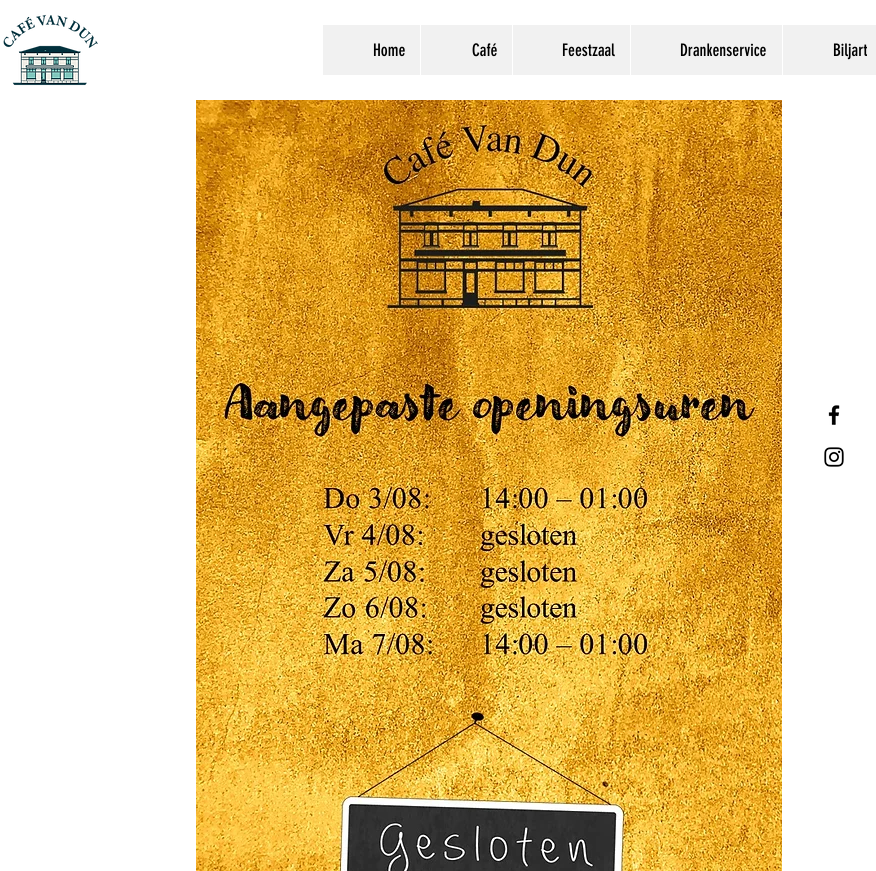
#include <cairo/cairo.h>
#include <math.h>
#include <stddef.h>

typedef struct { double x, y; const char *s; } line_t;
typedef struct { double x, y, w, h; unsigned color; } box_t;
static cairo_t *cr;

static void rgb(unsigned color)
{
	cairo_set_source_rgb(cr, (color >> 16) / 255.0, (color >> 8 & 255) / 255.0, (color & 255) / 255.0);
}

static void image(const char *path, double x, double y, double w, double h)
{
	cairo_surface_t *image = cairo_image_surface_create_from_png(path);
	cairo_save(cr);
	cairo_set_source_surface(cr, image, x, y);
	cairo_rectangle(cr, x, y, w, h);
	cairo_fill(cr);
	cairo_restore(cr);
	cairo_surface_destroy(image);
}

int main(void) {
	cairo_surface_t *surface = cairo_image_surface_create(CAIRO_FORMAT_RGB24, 876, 871);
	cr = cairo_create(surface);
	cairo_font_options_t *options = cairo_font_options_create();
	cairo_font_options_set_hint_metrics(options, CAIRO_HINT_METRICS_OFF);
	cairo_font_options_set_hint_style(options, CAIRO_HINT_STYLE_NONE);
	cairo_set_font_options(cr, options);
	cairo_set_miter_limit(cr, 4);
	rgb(0xffffff);
	cairo_paint(cr);
	image("img/1.png", 3, 14, 95, 72);
	{
		static const box_t items[] = {
			{323, 25, 553, 50, 0xf1f1f1},
			{420, 25, 1, 50, 0xffffff},
			{512, 25, 1, 50, 0xffffff},
			{630, 25, 1, 50, 0xffffff},
			{782, 25, 1, 50, 0xffffff},
		};
		for (size_t i = 0; i < sizeof items / sizeof *items; i++) {
			rgb(items[i].color);
			cairo_rectangle(cr, items[i].x, items[i].y, items[i].w, items[i].h);
			cairo_fill(cr);
		}
	}
	image("img/2.png", 196, 100, 586, 771);
	image("img/3.png", 828, 405, 12, 20);
	image("img/4.png", 824, 447, 20, 20);
	cairo_select_font_face(cr, "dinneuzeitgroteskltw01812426", CAIRO_FONT_SLANT_NORMAL, CAIRO_FONT_WEIGHT_NORMAL);
	cairo_set_font_size(cr, 17);
	rgb(0x000000);
	{
		static const line_t items[] = {
			{373, 56, "Home"},
			{472, 56, "Café"},
			{562, 56, "Feestzaal"},
			{680, 56, "Drankenservice"},
			{833, 56, "Biljart"},
		};
		for (size_t i = 0; i < sizeof items / sizeof *items; i++) {
			cairo_move_to(cr, items[i].x, items[i].y);
			cairo_show_text(cr, items[i].s);
		}
	}
	cairo_surface_write_to_png(surface, "page.png");
	cairo_font_options_destroy(options);
	cairo_destroy(cr);
	cairo_surface_destroy(surface);
	return 0;
}
